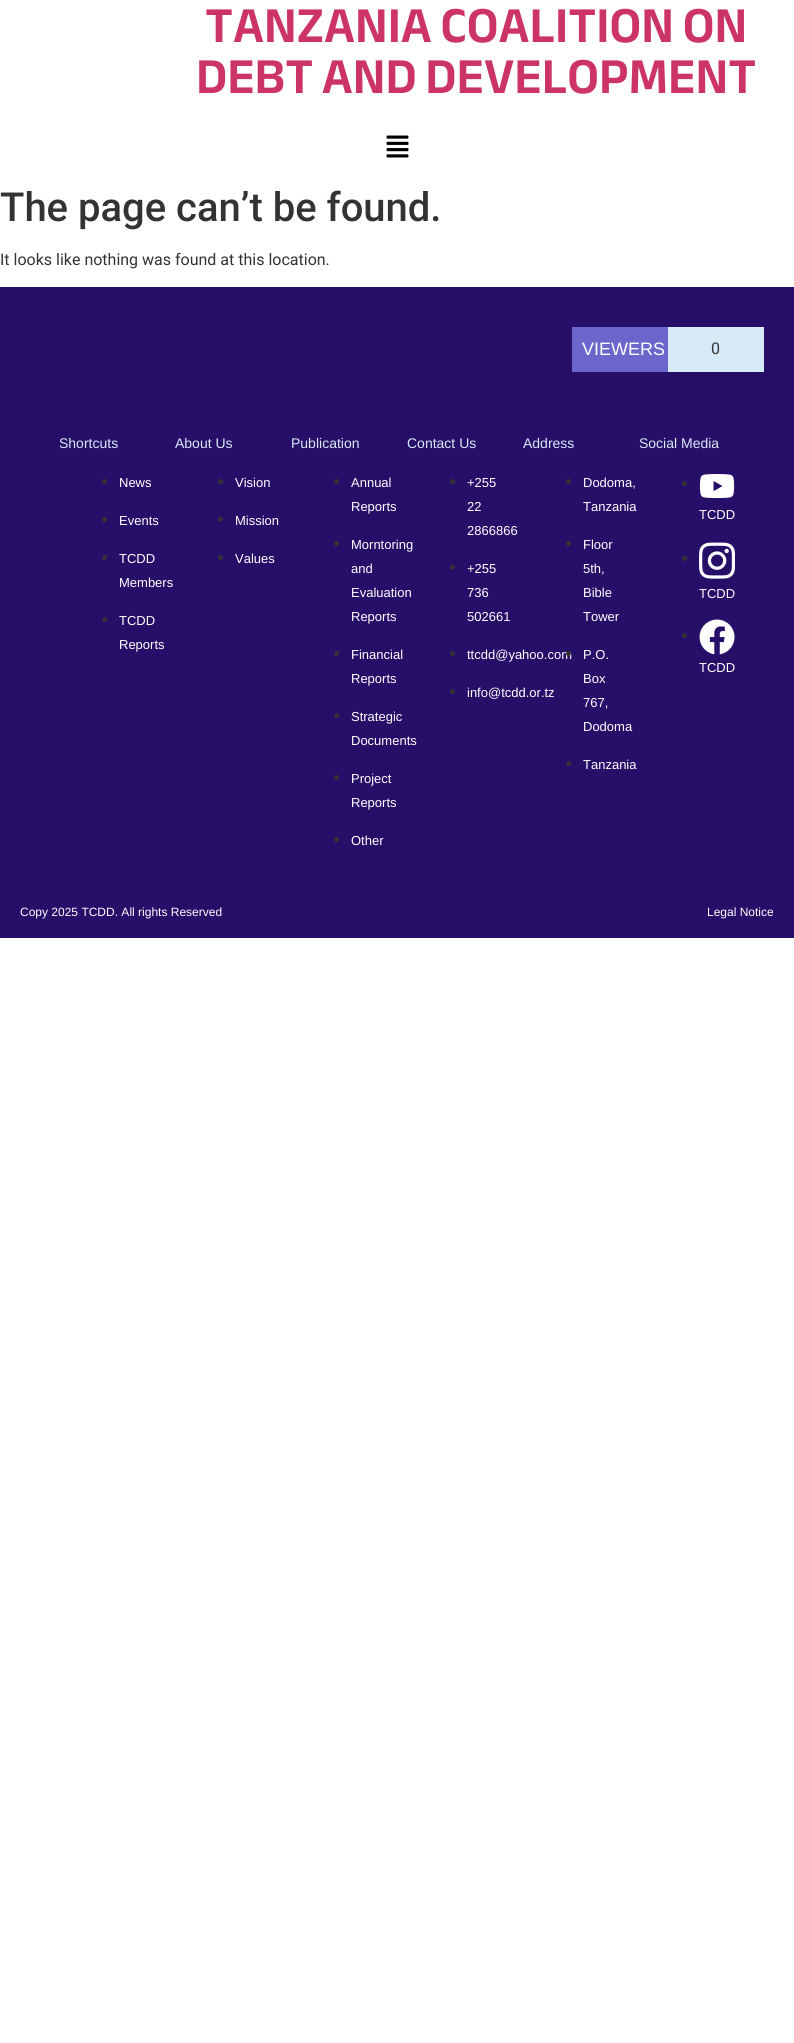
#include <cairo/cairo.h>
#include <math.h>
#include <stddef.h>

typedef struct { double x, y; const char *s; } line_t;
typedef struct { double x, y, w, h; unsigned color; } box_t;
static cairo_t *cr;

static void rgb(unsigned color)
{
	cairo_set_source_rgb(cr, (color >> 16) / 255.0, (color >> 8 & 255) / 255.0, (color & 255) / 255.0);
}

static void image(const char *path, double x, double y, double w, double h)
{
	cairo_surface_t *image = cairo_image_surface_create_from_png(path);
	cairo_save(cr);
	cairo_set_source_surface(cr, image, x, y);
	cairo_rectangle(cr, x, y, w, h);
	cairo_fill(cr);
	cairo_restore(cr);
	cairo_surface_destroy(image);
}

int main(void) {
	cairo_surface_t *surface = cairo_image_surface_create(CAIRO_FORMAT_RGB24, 794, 2043);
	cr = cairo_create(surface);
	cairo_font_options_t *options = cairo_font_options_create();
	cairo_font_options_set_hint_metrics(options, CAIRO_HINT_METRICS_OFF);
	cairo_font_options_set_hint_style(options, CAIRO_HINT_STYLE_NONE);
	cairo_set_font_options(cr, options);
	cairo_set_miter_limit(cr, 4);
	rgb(0xffffff);
	cairo_paint(cr);
	image("img/1.png", 386, 135, 23, 23);
	{
		static const box_t items[] = {
			{0, 287, 794, 651, 0x270e68},
			{572, 327, 96, 45, 0x6a66cc},
			{668, 327, 96, 45, 0xd6eaf8},
		};
		for (size_t i = 0; i < sizeof items / sizeof *items; i++) {
			rgb(items[i].color);
			cairo_rectangle(cr, items[i].x, items[i].y, items[i].w, items[i].h);
			cairo_fill(cr);
		}
	}
	rgb(0x333333);
	cairo_arc(cr, 104.5, 481.5, 2.5, 0, 2 * M_PI);
	cairo_fill(cr);
	cairo_arc(cr, 104.5, 519.5, 2.5, 0, 2 * M_PI);
	cairo_fill(cr);
	cairo_arc(cr, 104.5, 557.5, 2.5, 0, 2 * M_PI);
	cairo_fill(cr);
	cairo_arc(cr, 104.5, 619.5, 2.5, 0, 2 * M_PI);
	cairo_fill(cr);
	cairo_arc(cr, 220.5, 481.5, 2.5, 0, 2 * M_PI);
	cairo_fill(cr);
	cairo_arc(cr, 220.5, 519.5, 2.5, 0, 2 * M_PI);
	cairo_fill(cr);
	cairo_arc(cr, 220.5, 557.5, 2.5, 0, 2 * M_PI);
	cairo_fill(cr);
	cairo_arc(cr, 336.5, 481.5, 2.5, 0, 2 * M_PI);
	cairo_fill(cr);
	cairo_arc(cr, 336.5, 543.5, 2.5, 0, 2 * M_PI);
	cairo_fill(cr);
	cairo_arc(cr, 336.5, 653.5, 2.5, 0, 2 * M_PI);
	cairo_fill(cr);
	cairo_arc(cr, 336.5, 715.5, 2.5, 0, 2 * M_PI);
	cairo_fill(cr);
	cairo_arc(cr, 336.5, 777.5, 2.5, 0, 2 * M_PI);
	cairo_fill(cr);
	cairo_arc(cr, 336.5, 839.5, 2.5, 0, 2 * M_PI);
	cairo_fill(cr);
	cairo_arc(cr, 452.5, 481.5, 2.5, 0, 2 * M_PI);
	cairo_fill(cr);
	cairo_arc(cr, 452.5, 567.5, 2.5, 0, 2 * M_PI);
	cairo_fill(cr);
	cairo_arc(cr, 452.5, 653.5, 2.5, 0, 2 * M_PI);
	cairo_fill(cr);
	cairo_arc(cr, 452.5, 691.5, 2.5, 0, 2 * M_PI);
	cairo_fill(cr);
	cairo_arc(cr, 568.5, 481.5, 2.5, 0, 2 * M_PI);
	cairo_fill(cr);
	cairo_arc(cr, 568.5, 543.5, 2.5, 0, 2 * M_PI);
	cairo_fill(cr);
	cairo_arc(cr, 568.5, 763.5, 2.5, 0, 2 * M_PI);
	cairo_fill(cr);
	cairo_arc(cr, 684.5, 483.5, 2.5, 0, 2 * M_PI);
	cairo_fill(cr);
	image("img/2.png", 699, 474, 36, 25);
	cairo_arc(cr, 684.5, 558.5, 2.5, 0, 2 * M_PI);
	cairo_fill(cr);
	image("img/3.png", 699, 542, 36, 37);
	cairo_arc(cr, 684.5, 635.5, 2.5, 0, 2 * M_PI);
	cairo_fill(cr);
	image("img/4.png", 699, 619, 36, 36);
	cairo_select_font_face(cr, "Anek Bangla SemiBold", CAIRO_FONT_SLANT_NORMAL, CAIRO_FONT_WEIGHT_NORMAL);
	cairo_set_font_size(cr, 51);
	rgb(0xcc3366);
	cairo_move_to(cr, 205, 42);
	cairo_show_text(cr, "TANZANIA COALITION ON");
	cairo_move_to(cr, 196, 93);
	cairo_show_text(cr, "DEBT AND DEVELOPMENT");
	cairo_select_font_face(cr, "Roboto Medium", CAIRO_FONT_SLANT_NORMAL, CAIRO_FONT_WEIGHT_NORMAL);
	cairo_set_font_size(cr, 40);
	rgb(0x333333);
	cairo_move_to(cr, 0, 221);
	cairo_show_text(cr, "The page can’t be found.");
	cairo_select_font_face(cr, "Roboto", CAIRO_FONT_SLANT_NORMAL, CAIRO_FONT_WEIGHT_NORMAL);
	cairo_set_font_size(cr, 16);
	cairo_move_to(cr, 0, 265);
	cairo_show_text(cr, "It looks like nothing was found at this location.");
	cairo_select_font_face(cr, "Liberation Sans", CAIRO_FONT_SLANT_NORMAL, CAIRO_FONT_WEIGHT_NORMAL);
	cairo_set_font_size(cr, 18);
	rgb(0xffffff);
	cairo_move_to(cr, 582, 355);
	cairo_show_text(cr, "VIEWERS");
	cairo_select_font_face(cr, "Roboto", CAIRO_FONT_SLANT_NORMAL, CAIRO_FONT_WEIGHT_NORMAL);
	cairo_set_font_size(cr, 16);
	rgb(0x333333);
	cairo_move_to(cr, 711, 354);
	cairo_show_text(cr, "0");
	cairo_select_font_face(cr, "Liberation Sans", CAIRO_FONT_SLANT_NORMAL, CAIRO_FONT_WEIGHT_NORMAL);
	cairo_set_font_size(cr, 14);
	rgb(0xd6eaf8);
	cairo_move_to(cr, 59, 448);
	cairo_show_text(cr, "Shortcuts");
	cairo_set_font_size(cr, 13);
	rgb(0xffffff);
	{
		static const line_t items[] = {
			{119, 487, "News"},
			{119, 525, "Events"},
			{119, 563, "TCDD"},
			{119, 587, "Members"},
			{119, 625, "TCDD"},
			{119, 649, "Reports"},
		};
		for (size_t i = 0; i < sizeof items / sizeof *items; i++) {
			cairo_move_to(cr, items[i].x, items[i].y);
			cairo_show_text(cr, items[i].s);
		}
	}
	cairo_set_font_size(cr, 14);
	rgb(0xd6eaf8);
	cairo_move_to(cr, 175, 448);
	cairo_show_text(cr, "About Us");
	cairo_set_font_size(cr, 13);
	rgb(0xffffff);
	{
		static const line_t items[] = {
			{235, 487, "Vision"},
			{235, 525, "Mission"},
			{235, 563, "Values"},
		};
		for (size_t i = 0; i < sizeof items / sizeof *items; i++) {
			cairo_move_to(cr, items[i].x, items[i].y);
			cairo_show_text(cr, items[i].s);
		}
	}
	cairo_set_font_size(cr, 14);
	rgb(0xd6eaf8);
	cairo_move_to(cr, 291, 448);
	cairo_show_text(cr, "Publication");
	cairo_set_font_size(cr, 13);
	rgb(0xffffff);
	{
		static const line_t items[] = {
			{351, 487, "Annual"},
			{351, 511, "Reports"},
			{351, 549, "Morntoring"},
			{351, 573, "and"},
			{351, 597, "Evaluation"},
			{351, 621, "Reports"},
			{351, 659, "Financial"},
			{351, 683, "Reports"},
			{351, 721, "Strategic"},
			{351, 745, "Documents"},
			{351, 783, "Project"},
			{351, 807, "Reports"},
			{351, 845, "Other"},
		};
		for (size_t i = 0; i < sizeof items / sizeof *items; i++) {
			cairo_move_to(cr, items[i].x, items[i].y);
			cairo_show_text(cr, items[i].s);
		}
	}
	cairo_set_font_size(cr, 14);
	rgb(0xd6eaf8);
	cairo_move_to(cr, 407, 448);
	cairo_show_text(cr, "Contact Us");
	cairo_set_font_size(cr, 13);
	rgb(0xffffff);
	{
		static const line_t items[] = {
			{467, 487, "+255"},
			{467, 511, "22"},
			{467, 535, "2866866"},
			{467, 573, "+255"},
			{467, 597, "736"},
			{467, 621, "502661"},
			{467, 659, "ttcdd@yahoo.com"},
			{467, 697, "info@tcdd.or.tz"},
		};
		for (size_t i = 0; i < sizeof items / sizeof *items; i++) {
			cairo_move_to(cr, items[i].x, items[i].y);
			cairo_show_text(cr, items[i].s);
		}
	}
	cairo_set_font_size(cr, 14);
	rgb(0xd6eaf8);
	cairo_move_to(cr, 523, 448);
	cairo_show_text(cr, "Address");
	cairo_set_font_size(cr, 13);
	rgb(0xffffff);
	{
		static const line_t items[] = {
			{583, 487, "Dodoma,"},
			{583, 511, "Tanzania"},
			{583, 549, "Floor"},
			{583, 573, "5th,"},
			{583, 597, "Bible"},
			{583, 621, "Tower"},
		};
		for (size_t i = 0; i < sizeof items / sizeof *items; i++) {
			cairo_move_to(cr, items[i].x, items[i].y);
			cairo_show_text(cr, items[i].s);
		}
	}
	rgb(0x333333);
	cairo_new_path(cr);
	cairo_arc(cr, 568.5, 653.5, 2.5, 0, 2 * M_PI);
	cairo_fill(cr);
	rgb(0xffffff);
	{
		static const line_t items[] = {
			{583, 659, "P.O."},
			{583, 683, "Box"},
			{583, 707, "767,"},
			{583, 731, "Dodoma"},
			{583, 769, "Tanzania"},
		};
		for (size_t i = 0; i < sizeof items / sizeof *items; i++) {
			cairo_move_to(cr, items[i].x, items[i].y);
			cairo_show_text(cr, items[i].s);
		}
	}
	cairo_set_font_size(cr, 14);
	rgb(0xd6eaf8);
	cairo_move_to(cr, 639, 448);
	cairo_show_text(cr, "Social Media");
	cairo_set_font_size(cr, 13);
	rgb(0xffffff);
	{
		static const line_t items[] = {
			{699, 519, "TCDD"},
			{699, 598, "TCDD"},
			{699, 672, "TCDD"},
		};
		for (size_t i = 0; i < sizeof items / sizeof *items; i++) {
			cairo_move_to(cr, items[i].x, items[i].y);
			cairo_show_text(cr, items[i].s);
		}
	}
	cairo_set_font_size(cr, 12);
	cairo_move_to(cr, 20, 916);
	cairo_show_text(cr, "Copy 2025 TCDD. All rights Reserved");
	cairo_move_to(cr, 707, 916);
	cairo_show_text(cr, "Legal Notice");
	cairo_surface_write_to_png(surface, "page.png");
	cairo_font_options_destroy(options);
	cairo_destroy(cr);
	cairo_surface_destroy(surface);
	return 0;
}
